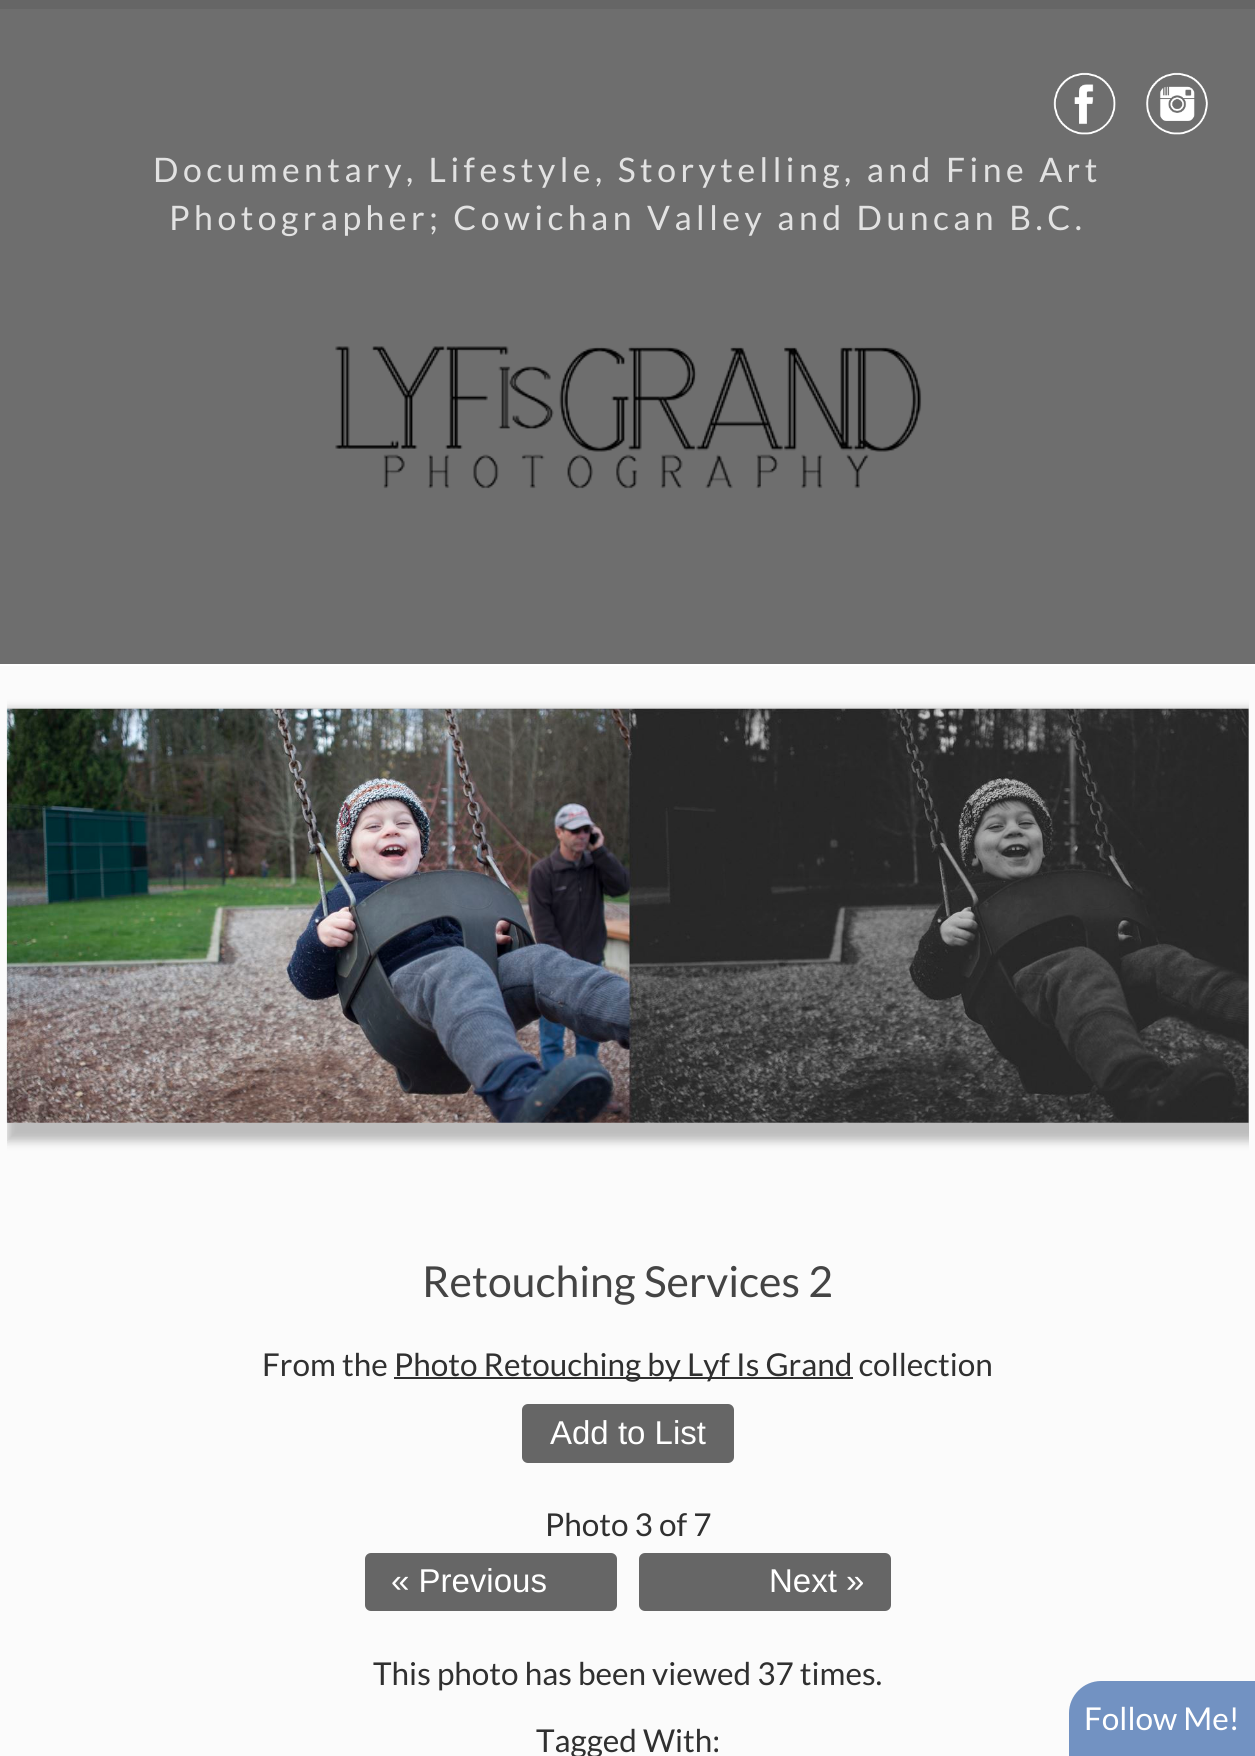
#include <cairo/cairo.h>
#include <math.h>
#include <stddef.h>

typedef struct { double x, y, w, h; unsigned color; } box_t;
static cairo_t *cr;

static void rgb(unsigned color)
{
	cairo_set_source_rgb(cr, (color >> 16) / 255.0, (color >> 8 & 255) / 255.0, (color & 255) / 255.0);
}

static void tracked(double x, double y, const char *s, double letter, double word)
{
	cairo_move_to(cr, x, y);
	while (*s) {
		char ch[5] = {0};
		int n = 0;
		do ch[n++] = *s++; while ((*s & 0xC0) == 0x80);
		cairo_show_text(cr, ch);
		cairo_rel_move_to(cr, letter + word * (*ch == ' '), 0);
	}
}

static void rrect(double x, double y, double w, double h, double r)
{
	cairo_new_sub_path(cr);
	cairo_arc(cr, x + w - r, y + h - r, r, 0, M_PI / 2);
	cairo_arc(cr, x + r, y + h - r, r, M_PI / 2, M_PI);
	cairo_arc(cr, x + r, y + r, r, M_PI, 1.5 * M_PI);
	cairo_arc(cr, x + w - r, y + r, r, 1.5 * M_PI, 2 * M_PI);
	cairo_close_path(cr);
}

static void soft_shadow(double x, double y, double w, double h, double r, double blur, double alpha)
{
	cairo_push_group_with_content(cr, CAIRO_CONTENT_ALPHA);
	cairo_set_operator(cr, CAIRO_OPERATOR_SOURCE);
	for (int i = 15; i >= -15 && fmin(w, h) + blur * i / 3 > 0; i -= 2) {
		double e = blur * i / 6;
		cairo_set_source_rgba(cr, 0, 0, 0, alpha * erfc((i - 1) / 8.5) / 2);
		rrect(x - e, y - e, w + 2 * e, h + 2 * e, fmax(0, fmin(r + e + blur * .6, fmin(w, h) / 2 + e)));
		cairo_fill(cr);
	}
	cairo_pattern_t *soft = cairo_pop_group(cr);
	cairo_mask(cr, soft);
	cairo_pattern_destroy(soft);
}

static void image(const char *path, double x, double y, double w, double h)
{
	cairo_surface_t *image = cairo_image_surface_create_from_png(path);
	cairo_save(cr);
	cairo_set_source_surface(cr, image, x, y);
	cairo_rectangle(cr, x, y, w, h);
	cairo_fill(cr);
	cairo_restore(cr);
	cairo_surface_destroy(image);
}

int main(void) {
	cairo_surface_t *surface = cairo_image_surface_create(CAIRO_FORMAT_RGB24, 1255, 1756);
	cr = cairo_create(surface);
	cairo_font_options_t *options = cairo_font_options_create();
	cairo_font_options_set_hint_metrics(options, CAIRO_HINT_METRICS_OFF);
	cairo_font_options_set_hint_style(options, CAIRO_HINT_STYLE_NONE);
	cairo_set_font_options(cr, options);
	cairo_set_miter_limit(cr, 4);
	rgb(0xfbfbfb);
	cairo_paint(cr);
	{
		static const box_t items[] = {
			{0, 9, 1255, 655, 0x6e6e6e},
			{0, 0, 1255, 9, 0x666666},
			{0, 664, 1255, 2, 0xffffff},
		};
		for (size_t i = 0; i < sizeof items / sizeof *items; i++) {
			rgb(items[i].color);
			cairo_rectangle(cr, items[i].x, items[i].y, items[i].w, items[i].h);
			cairo_fill(cr);
		}
	}
	image("img/1.png", 1053, 72, 63, 63);
	image("img/2.png", 1146, 72, 62, 63);
	image("img/3.png", 335, 346, 587, 143);
	cairo_save(cr);
	cairo_rectangle(cr, 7, 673, 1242, 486);
	cairo_clip(cr);
	rgb(0x000000);
	soft_shadow(7, 709, 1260, 432, 0, 4.5, 0.25);
	cairo_restore(cr);
	image("img/4.png", 6, 708, 1243, 415);
	rgb(0x303030);
	cairo_rectangle(cr, 394, 1377, 459, 2);
	cairo_fill(cr);
	rgb(0x666666);
	rrect(522, 1404, 212, 59, 6);
	cairo_fill(cr);
	rrect(365, 1553, 252, 58, 6);
	cairo_fill(cr);
	rrect(639, 1553, 252, 58, 6);
	cairo_fill(cr);
	rgb(0x7292c2);
	cairo_new_path(cr);
	cairo_move_to(cr, 1101, 1681);
	cairo_line_to(cr, 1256, 1681);
	cairo_line_to(cr, 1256, 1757);
	cairo_line_to(cr, 1069, 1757);
	cairo_line_to(cr, 1069, 1713);
	cairo_curve_to(cr, 1069, 1695.5, 1083.5, 1681, 1101, 1681);
	cairo_close_path(cr);
	cairo_fill(cr);
	cairo_select_font_face(cr, "Lato", CAIRO_FONT_SLANT_NORMAL, CAIRO_FONT_WEIGHT_NORMAL);
	cairo_set_font_size(cr, 33.75);
	rgb(0xe2e2e2);
	tracked(153, 182, "Documentary, Lifestyle, Storytelling, and Fine Art", 4.5, 0);
	tracked(169, 230, "Photographer; Cowichan Valley and Duncan B.C.", 4.5, 0);
	cairo_set_font_size(cr, 42.75);
	rgb(0x444444);
	cairo_move_to(cr, 422, 1297);
	cairo_show_text(cr, "Retouching Services 2");
	cairo_set_font_size(cr, 31.5);
	rgb(0x303030);
	cairo_move_to(cr, 262, 1376);
	cairo_show_text(cr, "From the");
	cairo_move_to(cr, 394, 1376);
	cairo_show_text(cr, "Photo Retouching by Lyf Is Grand collection");
	cairo_select_font_face(cr, "Liberation Sans", CAIRO_FONT_SLANT_NORMAL, CAIRO_FONT_WEIGHT_NORMAL);
	cairo_set_font_size(cr, 33);
	rgb(0xffffff);
	cairo_move_to(cr, 550, 1444);
	cairo_show_text(cr, "Add to List");
	cairo_select_font_face(cr, "Lato", CAIRO_FONT_SLANT_NORMAL, CAIRO_FONT_WEIGHT_NORMAL);
	cairo_set_font_size(cr, 31.5);
	rgb(0x303030);
	cairo_move_to(cr, 545, 1536);
	cairo_show_text(cr, "Photo 3 of 7");
	cairo_select_font_face(cr, "Liberation Sans", CAIRO_FONT_SLANT_NORMAL, CAIRO_FONT_WEIGHT_NORMAL);
	cairo_set_font_size(cr, 33);
	rgb(0xffffff);
	cairo_move_to(cr, 391, 1592);
	cairo_show_text(cr, "« Previous");
	cairo_move_to(cr, 769, 1592);
	cairo_show_text(cr, "Next »");
	cairo_select_font_face(cr, "Lato", CAIRO_FONT_SLANT_NORMAL, CAIRO_FONT_WEIGHT_NORMAL);
	cairo_set_font_size(cr, 31.5);
	rgb(0x303030);
	cairo_move_to(cr, 373, 1685);
	cairo_show_text(cr, "This photo has been viewed 37 times.");
	cairo_move_to(cr, 536, 1752);
	cairo_show_text(cr, "Tagged With:");
	rgb(0xffffff);
	cairo_move_to(cr, 1084, 1730);
	cairo_show_text(cr, "Follow Me!");
	cairo_surface_write_to_png(surface, "page.png");
	cairo_font_options_destroy(options);
	cairo_destroy(cr);
	cairo_surface_destroy(surface);
	return 0;
}
